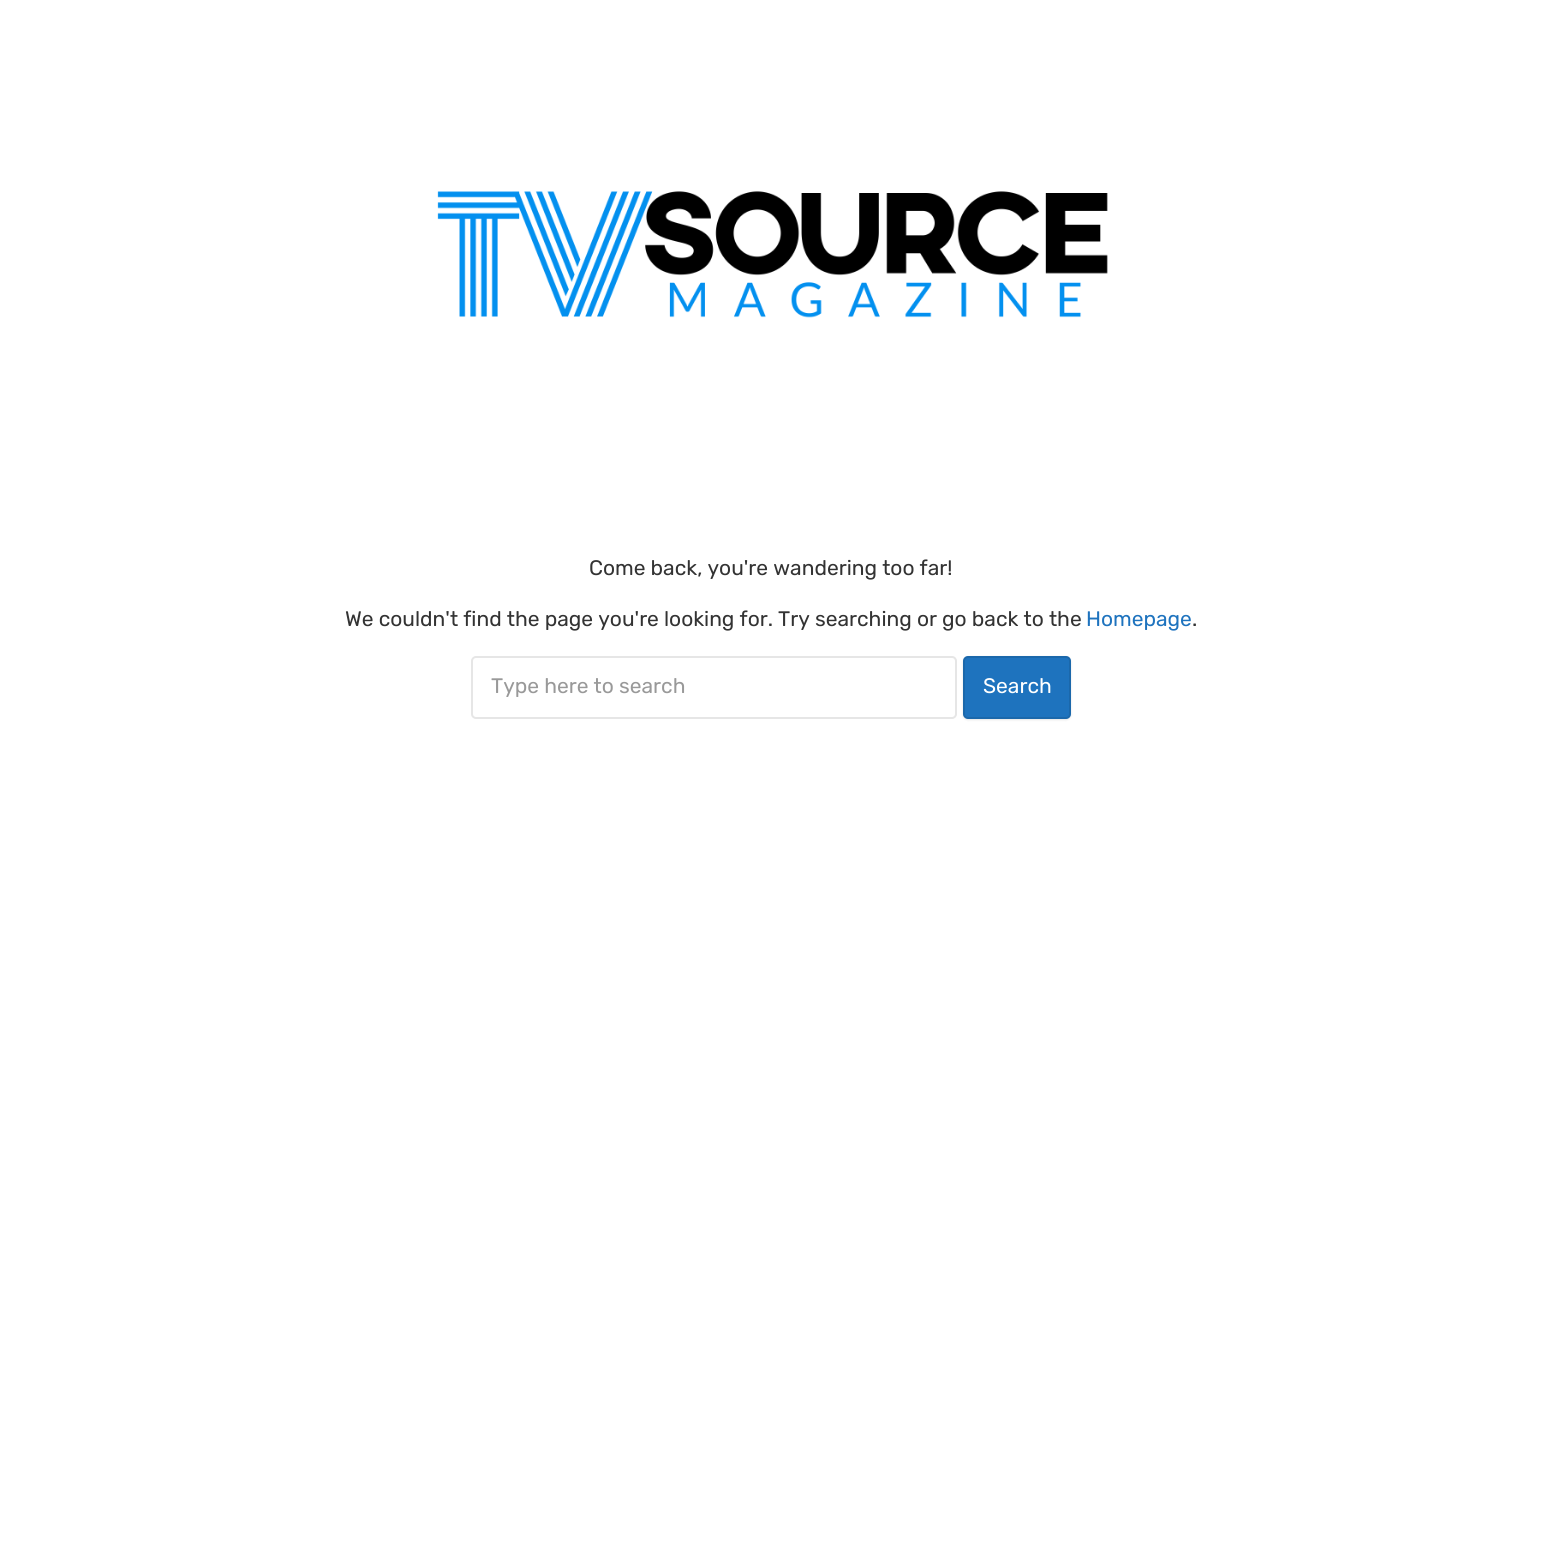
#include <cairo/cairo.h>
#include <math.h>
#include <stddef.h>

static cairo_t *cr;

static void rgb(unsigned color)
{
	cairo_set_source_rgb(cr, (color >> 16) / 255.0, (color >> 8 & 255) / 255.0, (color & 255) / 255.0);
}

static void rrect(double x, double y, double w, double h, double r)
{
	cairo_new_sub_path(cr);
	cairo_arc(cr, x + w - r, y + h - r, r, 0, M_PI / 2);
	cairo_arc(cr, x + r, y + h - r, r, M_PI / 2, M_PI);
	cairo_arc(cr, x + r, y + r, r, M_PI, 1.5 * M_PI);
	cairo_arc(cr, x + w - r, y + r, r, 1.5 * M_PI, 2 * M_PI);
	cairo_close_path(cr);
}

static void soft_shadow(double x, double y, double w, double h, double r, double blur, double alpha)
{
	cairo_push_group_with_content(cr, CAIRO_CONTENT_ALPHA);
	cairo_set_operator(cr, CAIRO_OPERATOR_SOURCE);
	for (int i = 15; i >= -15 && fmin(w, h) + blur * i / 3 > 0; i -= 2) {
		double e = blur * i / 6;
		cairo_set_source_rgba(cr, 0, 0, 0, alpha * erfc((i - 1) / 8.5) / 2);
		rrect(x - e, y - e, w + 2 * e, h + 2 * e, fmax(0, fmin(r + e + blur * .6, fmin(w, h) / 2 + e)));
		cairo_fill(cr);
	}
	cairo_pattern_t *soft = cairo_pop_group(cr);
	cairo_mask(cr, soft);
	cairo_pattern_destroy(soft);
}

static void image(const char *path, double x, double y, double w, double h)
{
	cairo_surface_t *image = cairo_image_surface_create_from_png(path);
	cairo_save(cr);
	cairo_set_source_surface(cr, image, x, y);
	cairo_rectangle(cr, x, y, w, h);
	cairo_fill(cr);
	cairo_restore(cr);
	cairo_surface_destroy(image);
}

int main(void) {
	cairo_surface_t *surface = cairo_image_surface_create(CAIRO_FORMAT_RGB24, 1541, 1546);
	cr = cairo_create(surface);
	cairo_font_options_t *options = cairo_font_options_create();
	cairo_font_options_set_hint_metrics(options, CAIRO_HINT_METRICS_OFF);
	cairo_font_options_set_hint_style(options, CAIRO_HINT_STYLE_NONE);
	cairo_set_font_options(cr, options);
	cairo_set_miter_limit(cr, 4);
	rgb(0xffffff);
	cairo_paint(cr);
	image("img/1.png", 437, 191, 671, 127);
	rrect(472, 657, 484, 61, 4);
	rgb(0xe6e6e6);
	cairo_stroke(cr);
	rgb(0x000000);
	soft_shadow(963, 657, 108, 63, 5, 1, 0.1);
	rgb(0x1e73be);
	rrect(963, 656, 108, 63, 5);
	cairo_fill(cr);
	rrect(964, 657, 106, 61, 4);
	cairo_set_source_rgba(cr, 0, 0, 0, 0.1);
	cairo_stroke(cr);
	cairo_select_font_face(cr, "Rubik", CAIRO_FONT_SLANT_NORMAL, CAIRO_FONT_WEIGHT_NORMAL);
	cairo_set_font_size(cr, 21);
	rgb(0x333333);
	cairo_move_to(cr, 589, 575);
	cairo_show_text(cr, "Come back, you're wandering too far!");
	cairo_move_to(cr, 345, 626);
	cairo_show_text(cr, "We couldn't find the page you're looking for. Try searching or go back to the");
	rgb(0x1e73be);
	cairo_move_to(cr, 1086, 626);
	cairo_show_text(cr, "Homepage");
	rgb(0x333333);
	cairo_move_to(cr, 1192, 626);
	cairo_show_text(cr, ".");
	rgb(0x999999);
	cairo_move_to(cr, 491, 693);
	cairo_show_text(cr, "Type here to search");
	rgb(0xffffff);
	cairo_move_to(cr, 983, 693);
	cairo_show_text(cr, "Search");
	cairo_surface_write_to_png(surface, "page.png");
	cairo_font_options_destroy(options);
	cairo_destroy(cr);
	cairo_surface_destroy(surface);
	return 0;
}
